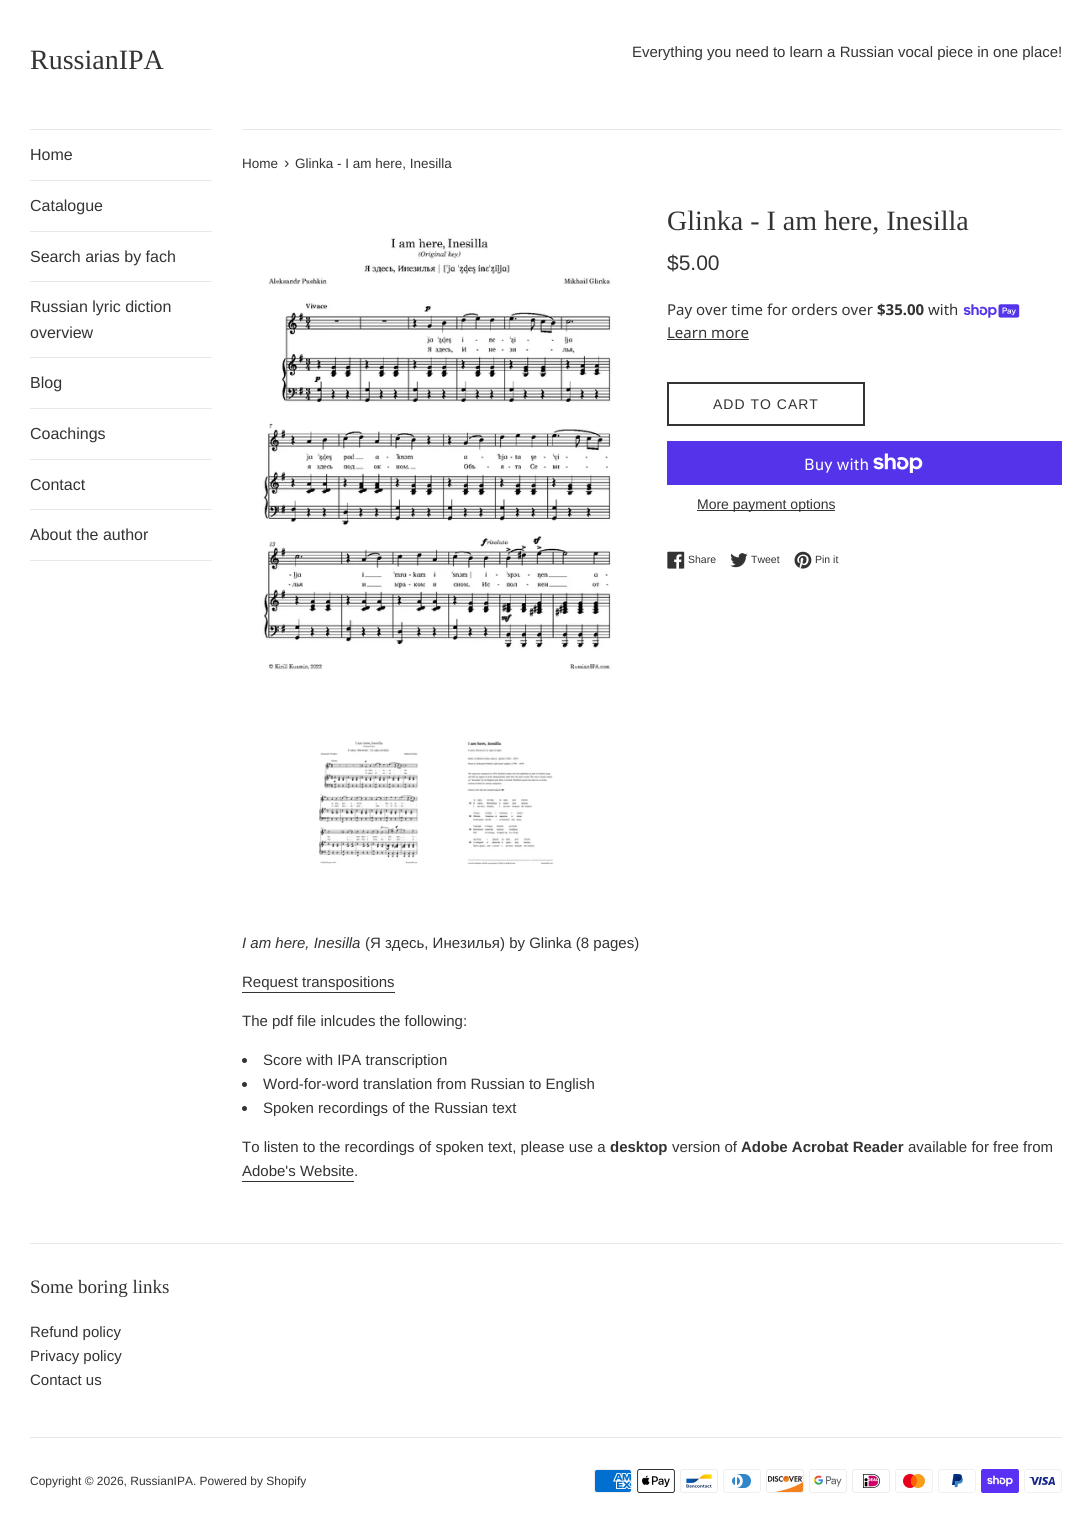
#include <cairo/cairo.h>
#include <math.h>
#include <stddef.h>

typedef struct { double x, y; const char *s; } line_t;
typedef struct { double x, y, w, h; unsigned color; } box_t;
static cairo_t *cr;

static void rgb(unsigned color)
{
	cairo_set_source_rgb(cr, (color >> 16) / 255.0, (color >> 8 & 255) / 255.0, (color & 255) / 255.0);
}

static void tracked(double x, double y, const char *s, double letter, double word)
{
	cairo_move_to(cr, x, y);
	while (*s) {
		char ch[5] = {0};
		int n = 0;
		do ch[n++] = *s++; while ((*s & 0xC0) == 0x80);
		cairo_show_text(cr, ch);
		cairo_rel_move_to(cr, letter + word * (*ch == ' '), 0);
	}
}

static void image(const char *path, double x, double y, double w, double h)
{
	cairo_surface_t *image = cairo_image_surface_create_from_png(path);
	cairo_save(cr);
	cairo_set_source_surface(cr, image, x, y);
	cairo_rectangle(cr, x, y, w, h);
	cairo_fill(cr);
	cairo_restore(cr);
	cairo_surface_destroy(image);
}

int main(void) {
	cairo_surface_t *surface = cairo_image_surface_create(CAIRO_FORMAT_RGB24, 1092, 1513);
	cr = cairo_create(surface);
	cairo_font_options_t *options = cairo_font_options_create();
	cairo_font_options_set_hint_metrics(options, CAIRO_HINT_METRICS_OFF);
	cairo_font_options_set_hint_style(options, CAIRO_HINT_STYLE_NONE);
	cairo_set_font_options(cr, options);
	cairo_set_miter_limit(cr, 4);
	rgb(0xffffff);
	cairo_paint(cr);
	{
		static const box_t items[] = {
			{30, 129, 182, 1, 0xe8e8e8},
			{30, 180, 182, 1, 0xe8e8e8},
			{30, 231, 182, 1, 0xe8e8e8},
			{30, 281, 182, 1, 0xe8e8e8},
			{30, 357, 182, 1, 0xe8e8e8},
			{30, 408, 182, 1, 0xe8e8e8},
			{30, 459, 182, 1, 0xe8e8e8},
			{30, 509, 182, 1, 0xe8e8e8},
			{30, 560, 182, 1, 0xe8e8e8},
			{242, 129, 820, 1, 0xe8e8e8},
		};
		for (size_t i = 0; i < sizeof items / sizeof *items; i++) {
			rgb(items[i].color);
			cairo_rectangle(cr, items[i].x, items[i].y, items[i].w, items[i].h);
			cairo_fill(cr);
		}
	}
	image("img/1.png", 262, 236, 350, 434);
	image("img/2.png", 318, 741, 100, 123);
	image("img/3.png", 467, 741, 87, 124);
	image("img/4.png", 963, 304, 57, 14);
	rgb(0x333333);
	cairo_rectangle(cr, 667, 339, 82, 1);
	cairo_fill(cr);
	cairo_rectangle(cr, 668, 383, 196, 42);
	cairo_stroke(cr);
	rgb(0x5433eb);
	cairo_rectangle(cr, 667, 441, 395, 44);
	cairo_fill(cr);
	image("img/5.png", 873, 453, 50, 20);
	rgb(0x333333);
	cairo_rectangle(cr, 697, 510, 138, 1);
	cairo_fill(cr);
	image("img/6.png", 667, 551, 18, 18);
	image("img/7.png", 730, 553, 18, 15);
	image("img/8.png", 794, 551, 18, 18);
	cairo_rectangle(cr, 242, 992, 153, 1);
	cairo_fill(cr);
	cairo_arc(cr, 244.5, 1060.5, 2.5, 0, 2 * M_PI);
	cairo_fill(cr);
	cairo_arc(cr, 244.5, 1084.5, 2.5, 0, 2 * M_PI);
	cairo_fill(cr);
	cairo_arc(cr, 244.5, 1108.5, 2.5, 0, 2 * M_PI);
	cairo_fill(cr);
	{
		static const box_t items[] = {
			{242, 1181, 112, 1, 0x333333},
			{30, 1243, 1032, 1, 0xe8e8e8},
			{30, 1437, 1032, 1, 0xe8e8e8},
		};
		for (size_t i = 0; i < sizeof items / sizeof *items; i++) {
			rgb(items[i].color);
			cairo_rectangle(cr, items[i].x, items[i].y, items[i].w, items[i].h);
			cairo_fill(cr);
		}
	}
	image("img/9.png", 594, 1469, 38, 24);
	image("img/10.png", 637, 1469, 38, 24);
	image("img/11.png", 680, 1469, 38, 24);
	image("img/12.png", 723, 1469, 38, 24);
	image("img/13.png", 766, 1469, 38, 24);
	image("img/14.png", 809, 1469, 38, 24);
	image("img/15.png", 852, 1469, 38, 24);
	image("img/16.png", 895, 1469, 38, 24);
	image("img/17.png", 938, 1469, 38, 24);
	image("img/18.png", 981, 1469, 38, 24);
	image("img/19.png", 1024, 1469, 38, 24);
	cairo_select_font_face(cr, "Liberation Serif", CAIRO_FONT_SLANT_NORMAL, CAIRO_FONT_WEIGHT_NORMAL);
	cairo_set_font_size(cr, 28);
	rgb(0x333333);
	cairo_move_to(cr, 30, 69);
	cairo_show_text(cr, "RussianIPA");
	cairo_select_font_face(cr, "Liberation Sans", CAIRO_FONT_SLANT_NORMAL, CAIRO_FONT_WEIGHT_NORMAL);
	cairo_set_font_size(cr, 15);
	cairo_move_to(cr, 632, 57);
	cairo_show_text(cr, "Everything you need to learn a Russian vocal piece in one place!");
	cairo_set_font_size(cr, 16);
	{
		static const line_t items[] = {
			{30, 160, "Home"},
			{30, 211, "Catalogue"},
			{30, 262, "Search arias by fach"},
			{30, 312, "Russian lyric diction"},
			{30, 338, "overview"},
			{30, 388, "Blog"},
			{30, 439, "Coachings"},
			{30, 490, "Contact"},
			{30, 540, "About the author"},
		};
		for (size_t i = 0; i < sizeof items / sizeof *items; i++) {
			cairo_move_to(cr, items[i].x, items[i].y);
			cairo_show_text(cr, items[i].s);
		}
	}
	cairo_set_font_size(cr, 13.5);
	cairo_move_to(cr, 242, 168);
	cairo_show_text(cr, "Home");
	cairo_set_font_size(cr, 16);
	cairo_move_to(cr, 284, 168);
	cairo_show_text(cr, "›");
	cairo_set_font_size(cr, 13.5);
	cairo_move_to(cr, 295, 168);
	cairo_show_text(cr, "Glinka - I am here, Inesilla");
	cairo_select_font_face(cr, "Liberation Serif", CAIRO_FONT_SLANT_NORMAL, CAIRO_FONT_WEIGHT_NORMAL);
	cairo_set_font_size(cr, 28);
	cairo_move_to(cr, 667, 230);
	cairo_show_text(cr, "Glinka - I am here, Inesilla");
	cairo_select_font_face(cr, "Liberation Sans", CAIRO_FONT_SLANT_NORMAL, CAIRO_FONT_WEIGHT_NORMAL);
	cairo_set_font_size(cr, 21);
	cairo_move_to(cr, 667, 270);
	cairo_show_text(cr, "$5.00");
	cairo_select_font_face(cr, "Noto Sans", CAIRO_FONT_SLANT_NORMAL, CAIRO_FONT_WEIGHT_NORMAL);
	cairo_set_font_size(cr, 15);
	cairo_move_to(cr, 667, 315);
	cairo_show_text(cr, "Pay over time for orders over");
	cairo_select_font_face(cr, "Noto Sans", CAIRO_FONT_SLANT_NORMAL, CAIRO_FONT_WEIGHT_BOLD);
	cairo_move_to(cr, 877, 315);
	cairo_show_text(cr, "$35.00");
	cairo_select_font_face(cr, "Noto Sans", CAIRO_FONT_SLANT_NORMAL, CAIRO_FONT_WEIGHT_NORMAL);
	cairo_move_to(cr, 928, 315);
	cairo_show_text(cr, "with");
	cairo_move_to(cr, 667, 338);
	cairo_show_text(cr, "Learn more");
	cairo_select_font_face(cr, "Liberation Sans", CAIRO_FONT_SLANT_NORMAL, CAIRO_FONT_WEIGHT_NORMAL);
	cairo_set_font_size(cr, 14);
	tracked(713, 409, "ADD TO CART", 1, 0);
	cairo_select_font_face(cr, "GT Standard", CAIRO_FONT_SLANT_NORMAL, CAIRO_FONT_WEIGHT_NORMAL);
	cairo_set_font_size(cr, 16);
	rgb(0xffffff);
	cairo_move_to(cr, 804, 470);
	cairo_show_text(cr, "Buy with");
	cairo_select_font_face(cr, "Liberation Sans", CAIRO_FONT_SLANT_NORMAL, CAIRO_FONT_WEIGHT_NORMAL);
	cairo_set_font_size(cr, 14);
	rgb(0x333333);
	cairo_move_to(cr, 697, 509);
	cairo_show_text(cr, "More payment options");
	cairo_set_font_size(cr, 10.5);
	{
		static const line_t items[] = {
			{688, 563, "Share"},
			{751, 563, "Tweet"},
			{815, 563, "Pin it"},
		};
		for (size_t i = 0; i < sizeof items / sizeof *items; i++) {
			cairo_move_to(cr, items[i].x, items[i].y);
			cairo_show_text(cr, items[i].s);
		}
	}
	cairo_select_font_face(cr, "Liberation Sans", CAIRO_FONT_SLANT_ITALIC, CAIRO_FONT_WEIGHT_NORMAL);
	cairo_set_font_size(cr, 15);
	cairo_move_to(cr, 242, 948);
	cairo_show_text(cr, "I am here, Inesilla");
	cairo_select_font_face(cr, "Liberation Sans", CAIRO_FONT_SLANT_NORMAL, CAIRO_FONT_WEIGHT_NORMAL);
	{
		static const line_t items[] = {
			{365, 948, "(Я здесь, Инезилья) by Glinka (8 pages)"},
			{242, 987, "Request transpositions"},
			{242, 1026, "The pdf file inlcudes the following:"},
			{263, 1065, "Score with IPA transcription"},
			{263, 1089, "Word-for-word translation from Russian to English"},
			{263, 1113, "Spoken recordings of the Russian text"},
			{242, 1152, "To listen to the recordings of spoken text, please use a"},
		};
		for (size_t i = 0; i < sizeof items / sizeof *items; i++) {
			cairo_move_to(cr, items[i].x, items[i].y);
			cairo_show_text(cr, items[i].s);
		}
	}
	cairo_select_font_face(cr, "Liberation Sans", CAIRO_FONT_SLANT_NORMAL, CAIRO_FONT_WEIGHT_BOLD);
	cairo_move_to(cr, 610, 1152);
	cairo_show_text(cr, "desktop");
	cairo_select_font_face(cr, "Liberation Sans", CAIRO_FONT_SLANT_NORMAL, CAIRO_FONT_WEIGHT_NORMAL);
	cairo_move_to(cr, 672, 1152);
	cairo_show_text(cr, "version of");
	cairo_select_font_face(cr, "Liberation Sans", CAIRO_FONT_SLANT_NORMAL, CAIRO_FONT_WEIGHT_BOLD);
	cairo_move_to(cr, 741, 1152);
	cairo_show_text(cr, "Adobe Acrobat Reader");
	cairo_select_font_face(cr, "Liberation Sans", CAIRO_FONT_SLANT_NORMAL, CAIRO_FONT_WEIGHT_NORMAL);
	cairo_move_to(cr, 908, 1152);
	cairo_show_text(cr, "available for free from");
	cairo_move_to(cr, 242, 1176);
	cairo_show_text(cr, "Adobe's Website.");
	cairo_select_font_face(cr, "Liberation Serif", CAIRO_FONT_SLANT_NORMAL, CAIRO_FONT_WEIGHT_NORMAL);
	cairo_set_font_size(cr, 19);
	cairo_move_to(cr, 30, 1293);
	cairo_show_text(cr, "Some boring links");
	cairo_select_font_face(cr, "Liberation Sans", CAIRO_FONT_SLANT_NORMAL, CAIRO_FONT_WEIGHT_NORMAL);
	cairo_set_font_size(cr, 15);
	{
		static const line_t items[] = {
			{30, 1337, "Refund policy"},
			{30, 1361, "Privacy policy"},
			{30, 1385, "Contact us"},
		};
		for (size_t i = 0; i < sizeof items / sizeof *items; i++) {
			cairo_move_to(cr, items[i].x, items[i].y);
			cairo_show_text(cr, items[i].s);
		}
	}
	cairo_set_font_size(cr, 12);
	cairo_move_to(cr, 30, 1485);
	cairo_show_text(cr, "Copyright © 2026, RussianIPA. Powered by Shopify");
	cairo_surface_write_to_png(surface, "page.png");
	cairo_font_options_destroy(options);
	cairo_destroy(cr);
	cairo_surface_destroy(surface);
	return 0;
}
